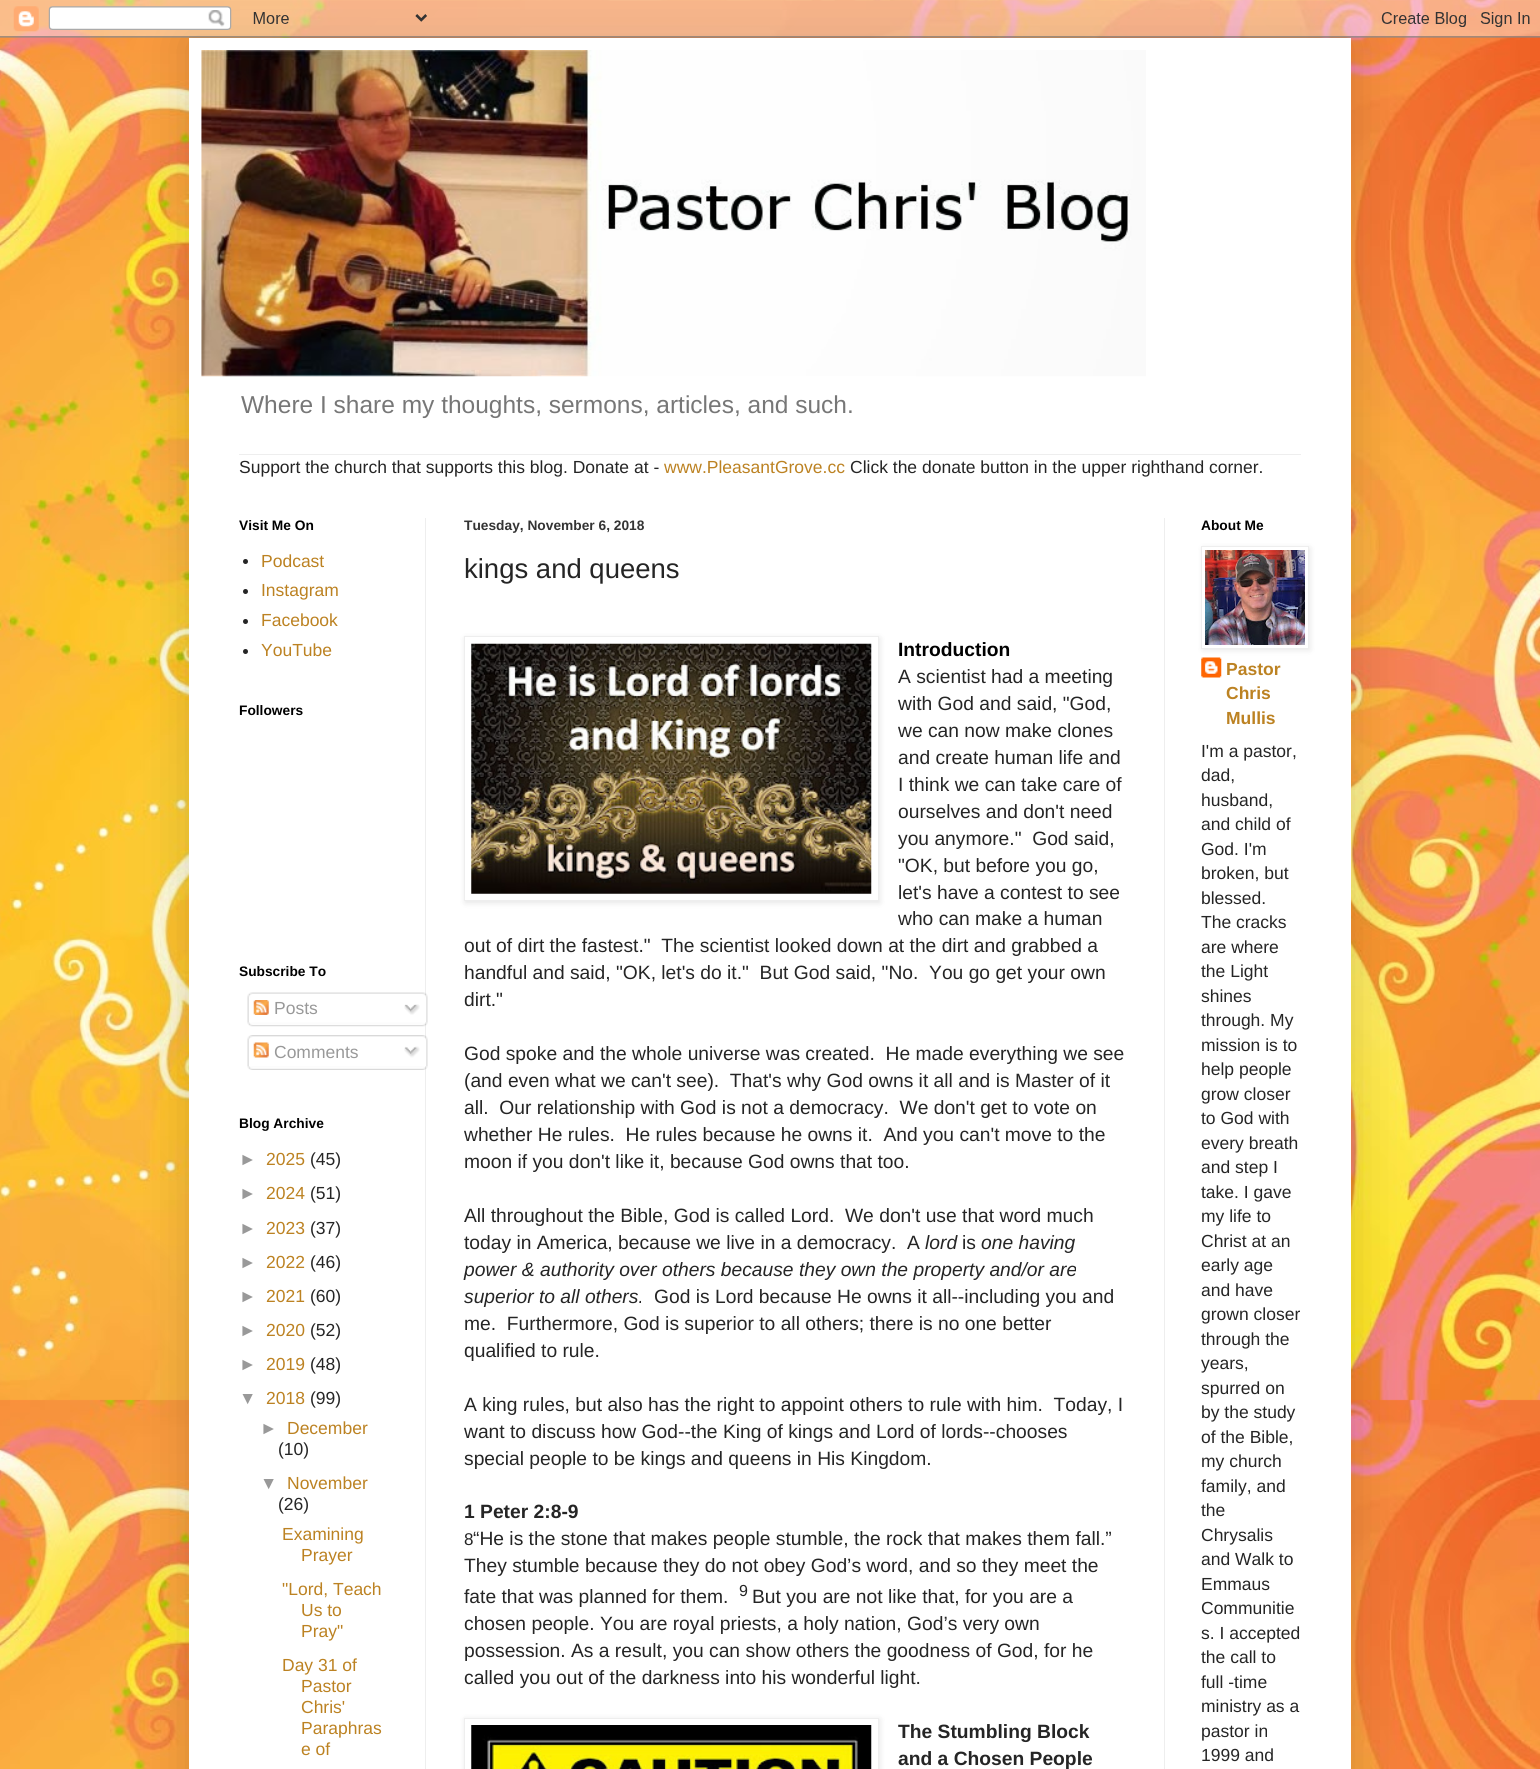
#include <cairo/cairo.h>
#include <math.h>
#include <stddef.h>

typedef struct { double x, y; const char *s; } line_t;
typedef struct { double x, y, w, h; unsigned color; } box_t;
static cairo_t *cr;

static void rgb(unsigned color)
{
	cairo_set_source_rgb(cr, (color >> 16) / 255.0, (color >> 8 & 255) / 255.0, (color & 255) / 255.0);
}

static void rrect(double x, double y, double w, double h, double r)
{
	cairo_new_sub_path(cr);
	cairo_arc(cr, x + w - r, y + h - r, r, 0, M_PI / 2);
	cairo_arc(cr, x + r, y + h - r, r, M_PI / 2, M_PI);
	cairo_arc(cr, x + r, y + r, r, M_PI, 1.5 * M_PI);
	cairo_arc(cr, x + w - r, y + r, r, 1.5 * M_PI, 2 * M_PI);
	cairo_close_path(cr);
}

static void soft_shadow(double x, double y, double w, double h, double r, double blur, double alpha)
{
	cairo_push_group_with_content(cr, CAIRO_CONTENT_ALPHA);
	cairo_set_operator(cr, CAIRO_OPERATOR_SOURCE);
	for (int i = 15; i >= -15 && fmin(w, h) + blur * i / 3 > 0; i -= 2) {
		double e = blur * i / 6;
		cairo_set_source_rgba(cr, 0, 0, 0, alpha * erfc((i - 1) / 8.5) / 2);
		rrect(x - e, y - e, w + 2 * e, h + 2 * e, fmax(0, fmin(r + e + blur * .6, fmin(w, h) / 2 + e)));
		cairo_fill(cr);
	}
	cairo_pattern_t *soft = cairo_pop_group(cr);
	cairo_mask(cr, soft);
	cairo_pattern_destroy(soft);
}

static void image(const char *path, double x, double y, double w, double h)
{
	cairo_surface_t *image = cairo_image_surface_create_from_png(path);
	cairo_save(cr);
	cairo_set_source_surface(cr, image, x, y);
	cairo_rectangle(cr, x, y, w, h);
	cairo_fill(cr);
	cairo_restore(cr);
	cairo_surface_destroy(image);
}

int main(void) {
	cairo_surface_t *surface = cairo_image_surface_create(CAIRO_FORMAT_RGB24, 1540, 1769);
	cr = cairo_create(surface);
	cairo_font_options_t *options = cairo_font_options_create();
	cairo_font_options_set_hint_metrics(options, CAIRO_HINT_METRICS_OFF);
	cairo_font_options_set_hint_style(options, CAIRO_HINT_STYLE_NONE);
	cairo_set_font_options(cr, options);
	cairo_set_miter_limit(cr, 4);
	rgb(0xffffff);
	cairo_paint(cr);
	image("img/1.png", 0, 0, 1540, 1769);
	rgb(0x000000);
	soft_shadow(189, 38, 1162, 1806, 0, 25, 0.15);
	image("img/2.png", 0, 0, 1540, 38);
	rgb(0xffffff);
	cairo_rectangle(cr, 189, 38, 1162, 1731);
	cairo_fill(cr);
	image("img/3.png", 201, 50, 945, 327);
	{
		static const box_t items[] = {
			{239, 454, 1062, 1, 0xeeeeee},
			{425, 518, 1, 1251, 0xeeeeee},
			{1164, 518, 1, 1251, 0xeeeeee},
		};
		for (size_t i = 0; i < sizeof items / sizeof *items; i++) {
			rgb(items[i].color);
			cairo_rectangle(cr, items[i].x, items[i].y, items[i].w, items[i].h);
			cairo_fill(cr);
		}
	}
	rgb(0x252525);
	cairo_arc(cr, 245.5, 561.5, 2.5, 0, 2 * M_PI);
	cairo_fill(cr);
	cairo_arc(cr, 245.5, 591.5, 2.5, 0, 2 * M_PI);
	cairo_fill(cr);
	cairo_arc(cr, 245.5, 621.5, 2.5, 0, 2 * M_PI);
	cairo_fill(cr);
	cairo_arc(cr, 245.5, 651.5, 2.5, 0, 2 * M_PI);
	cairo_fill(cr);
	image("img/4.png", 247, 992, 181, 31);
	image("img/5.png", 253, 1000, 16, 15);
	image("img/6.png", 404, 1004, 16, 11);
	image("img/7.png", 247, 1022, 181, 5);
	image("img/8.png", 247, 1035, 181, 32);
	image("img/9.png", 253, 1042, 16, 16);
	image("img/10.png", 404, 1046, 16, 12);
	image("img/11.png", 247, 1066, 181, 4);
	rgb(0x000000);
	soft_shadow(465, 638, 415, 265, 0, 3, 0.1);
	rgb(0xffffff);
	cairo_rectangle(cr, 464.5, 636.5, 414, 264);
	cairo_fill_preserve(cr);
	rgb(0xeeeeee);
	cairo_set_line_width(cr, 1);
	cairo_stroke(cr);
	image("img/12.png", 471, 643, 401, 251);
	rgb(0x000000);
	soft_shadow(465, 1719, 415, 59, 0, 3, 0.1);
	rgb(0xffffff);
	cairo_rectangle(cr, 464.5, 1718.5, 414, 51);
	cairo_fill_preserve(cr);
	rgb(0xeeeeee);
	cairo_stroke(cr);
	image("img/13.png", 471, 1725, 401, 44);
	image("img/15.png", 1201, 657, 21, 21);
	rgb(0x000000);
	soft_shadow(1203, 548, 107, 102, 0, 3, 0.1);
	rgb(0xffffff);
	cairo_rectangle(cr, 1201.5, 546.5, 107, 102);
	cairo_fill_preserve(cr);
	rgb(0xeeeeee);
	cairo_stroke(cr);
	image("img/14.png", 1205, 550, 100, 95);
	cairo_select_font_face(cr, "Liberation Sans", CAIRO_FONT_SLANT_NORMAL, CAIRO_FONT_WEIGHT_NORMAL);
	cairo_set_font_size(cr, 24.5);
	rgb(0x777777);
	cairo_move_to(cr, 241, 413);
	cairo_show_text(cr, "Where I share my thoughts, sermons, articles, and such.");
	cairo_set_font_size(cr, 17.5);
	rgb(0x252525);
	cairo_move_to(cr, 239, 473);
	cairo_show_text(cr, "Support the church that supports this blog. Donate at -");
	rgb(0xbc8222);
	cairo_move_to(cr, 664, 473);
	cairo_show_text(cr, "www.PleasantGrove.cc");
	rgb(0x252525);
	cairo_move_to(cr, 850, 473);
	cairo_show_text(cr, "Click the donate button in the upper righthand corner.");
	cairo_select_font_face(cr, "Liberation Sans", CAIRO_FONT_SLANT_NORMAL, CAIRO_FONT_WEIGHT_BOLD);
	cairo_set_font_size(cr, 13.75);
	rgb(0x000000);
	cairo_move_to(cr, 239, 530);
	cairo_show_text(cr, "Visit Me On");
	cairo_select_font_face(cr, "Liberation Sans", CAIRO_FONT_SLANT_NORMAL, CAIRO_FONT_WEIGHT_NORMAL);
	cairo_set_font_size(cr, 17.5);
	rgb(0xbc8222);
	{
		static const line_t items[] = {
			{261, 567, "Podcast"},
			{261, 596, "Instagram"},
			{261, 626, "Facebook"},
			{261, 656, "YouTube"},
		};
		for (size_t i = 0; i < sizeof items / sizeof *items; i++) {
			cairo_move_to(cr, items[i].x, items[i].y);
			cairo_show_text(cr, items[i].s);
		}
	}
	cairo_select_font_face(cr, "Liberation Sans", CAIRO_FONT_SLANT_NORMAL, CAIRO_FONT_WEIGHT_BOLD);
	cairo_set_font_size(cr, 13.75);
	rgb(0x000000);
	cairo_move_to(cr, 239, 715);
	cairo_show_text(cr, "Followers");
	cairo_move_to(cr, 239, 976);
	cairo_show_text(cr, "Subscribe To");
	cairo_select_font_face(cr, "Liberation Sans", CAIRO_FONT_SLANT_NORMAL, CAIRO_FONT_WEIGHT_NORMAL);
	cairo_set_font_size(cr, 17.5);
	rgb(0x999999);
	cairo_move_to(cr, 274, 1014);
	cairo_show_text(cr, "Posts");
	cairo_move_to(cr, 274, 1058);
	cairo_show_text(cr, "Comments");
	cairo_select_font_face(cr, "Liberation Sans", CAIRO_FONT_SLANT_NORMAL, CAIRO_FONT_WEIGHT_BOLD);
	cairo_set_font_size(cr, 13.75);
	rgb(0x000000);
	cairo_move_to(cr, 239, 1128);
	cairo_show_text(cr, "Blog Archive");
	cairo_select_font_face(cr, "Liberation Sans", CAIRO_FONT_SLANT_NORMAL, CAIRO_FONT_WEIGHT_NORMAL);
	cairo_set_font_size(cr, 17.5);
	rgb(0x999999);
	cairo_move_to(cr, 239, 1165);
	cairo_show_text(cr, "►");
	rgb(0xbc8222);
	cairo_move_to(cr, 266, 1165);
	cairo_show_text(cr, "2025");
	rgb(0x252525);
	cairo_move_to(cr, 310, 1165);
	cairo_show_text(cr, "(45)");
	rgb(0x999999);
	cairo_move_to(cr, 239, 1199);
	cairo_show_text(cr, "►");
	rgb(0xbc8222);
	cairo_move_to(cr, 266, 1199);
	cairo_show_text(cr, "2024");
	rgb(0x252525);
	cairo_move_to(cr, 310, 1199);
	cairo_show_text(cr, "(51)");
	rgb(0x999999);
	cairo_move_to(cr, 239, 1234);
	cairo_show_text(cr, "►");
	rgb(0xbc8222);
	cairo_move_to(cr, 266, 1234);
	cairo_show_text(cr, "2023");
	rgb(0x252525);
	cairo_move_to(cr, 310, 1234);
	cairo_show_text(cr, "(37)");
	rgb(0x999999);
	cairo_move_to(cr, 239, 1268);
	cairo_show_text(cr, "►");
	rgb(0xbc8222);
	cairo_move_to(cr, 266, 1268);
	cairo_show_text(cr, "2022");
	rgb(0x252525);
	cairo_move_to(cr, 310, 1268);
	cairo_show_text(cr, "(46)");
	rgb(0x999999);
	cairo_move_to(cr, 239, 1302);
	cairo_show_text(cr, "►");
	rgb(0xbc8222);
	cairo_move_to(cr, 266, 1302);
	cairo_show_text(cr, "2021");
	rgb(0x252525);
	cairo_move_to(cr, 310, 1302);
	cairo_show_text(cr, "(60)");
	rgb(0x999999);
	cairo_move_to(cr, 239, 1336);
	cairo_show_text(cr, "►");
	rgb(0xbc8222);
	cairo_move_to(cr, 266, 1336);
	cairo_show_text(cr, "2020");
	rgb(0x252525);
	cairo_move_to(cr, 310, 1336);
	cairo_show_text(cr, "(52)");
	rgb(0x999999);
	cairo_move_to(cr, 239, 1370);
	cairo_show_text(cr, "►");
	rgb(0xbc8222);
	cairo_move_to(cr, 266, 1370);
	cairo_show_text(cr, "2019");
	rgb(0x252525);
	cairo_move_to(cr, 310, 1370);
	cairo_show_text(cr, "(48)");
	rgb(0x999999);
	cairo_move_to(cr, 239, 1404);
	cairo_show_text(cr, "▼");
	rgb(0xbc8222);
	cairo_move_to(cr, 266, 1404);
	cairo_show_text(cr, "2018");
	rgb(0x252525);
	cairo_move_to(cr, 310, 1404);
	cairo_show_text(cr, "(99)");
	rgb(0x999999);
	cairo_move_to(cr, 260, 1434);
	cairo_show_text(cr, "►");
	rgb(0xbc8222);
	cairo_move_to(cr, 287, 1434);
	cairo_show_text(cr, "December");
	rgb(0x252525);
	cairo_move_to(cr, 278, 1455);
	cairo_show_text(cr, "(10)");
	rgb(0x999999);
	cairo_move_to(cr, 260, 1489);
	cairo_show_text(cr, "▼");
	rgb(0xbc8222);
	cairo_move_to(cr, 287, 1489);
	cairo_show_text(cr, "November");
	rgb(0x252525);
	cairo_move_to(cr, 278, 1510);
	cairo_show_text(cr, "(26)");
	rgb(0xbc8222);
	{
		static const line_t items[] = {
			{282, 1540, "Examining"},
			{301, 1561, "Prayer"},
			{282, 1595, "\"Lord, Teach"},
			{301, 1616, "Us to"},
			{301, 1637, "Pray\""},
			{282, 1671, "Day 31 of"},
			{301, 1692, "Pastor"},
			{301, 1713, "Chris'"},
			{301, 1734, "Paraphras"},
			{301, 1755, "e of"},
		};
		for (size_t i = 0; i < sizeof items / sizeof *items; i++) {
			cairo_move_to(cr, items[i].x, items[i].y);
			cairo_show_text(cr, items[i].s);
		}
	}
	cairo_select_font_face(cr, "Liberation Sans", CAIRO_FONT_SLANT_NORMAL, CAIRO_FONT_WEIGHT_BOLD);
	cairo_set_font_size(cr, 13.75);
	rgb(0x343434);
	cairo_move_to(cr, 464, 530);
	cairo_show_text(cr, "Tuesday, November 6, 2018");
	cairo_select_font_face(cr, "Liberation Sans", CAIRO_FONT_SLANT_NORMAL, CAIRO_FONT_WEIGHT_NORMAL);
	cairo_set_font_size(cr, 27.5);
	rgb(0x252525);
	cairo_move_to(cr, 464, 578);
	cairo_show_text(cr, "kings and queens");
	cairo_select_font_face(cr, "Liberation Sans", CAIRO_FONT_SLANT_NORMAL, CAIRO_FONT_WEIGHT_BOLD);
	cairo_set_font_size(cr, 19.25);
	rgb(0x000000);
	cairo_move_to(cr, 898, 656);
	cairo_show_text(cr, "Introduction");
	cairo_select_font_face(cr, "Liberation Sans", CAIRO_FONT_SLANT_NORMAL, CAIRO_FONT_WEIGHT_NORMAL);
	rgb(0x252525);
	{
		static const line_t items[] = {
			{898, 683, "A scientist had a meeting"},
			{898, 710, "with God and said, \"God,"},
			{898, 737, "we can now make clones"},
			{898, 764, "and create human life and"},
			{898, 791, "I think we can take care of"},
			{898, 818, "ourselves and don't need"},
			{898, 845, "you anymore.\"  God said,"},
			{898, 872, "\"OK, but before you go,"},
			{898, 899, "let's have a contest to see"},
			{898, 925, "who can make a human"},
			{464, 952, "out of dirt the fastest.\"  The scientist looked down at the dirt and grabbed a"},
			{464, 979, "handful and said, \"OK, let's do it.\"  But God said, \"No.  You go get your own"},
			{464, 1006, "dirt.\""},
			{464, 1060, "God spoke and the whole universe was created.  He made everything we see"},
			{464, 1087, "(and even what we can't see).  That's why God owns it all and is Master of it"},
			{464, 1114, "all.  Our relationship with God is not a democracy.  We don't get to vote on"},
			{464, 1141, "whether He rules.  He rules because he owns it.  And you can't move to the"},
			{464, 1168, "moon if you don't like it, because God owns that too."},
			{464, 1222, "All throughout the Bible, God is called Lord.  We don't use that word much"},
			{464, 1249, "today in America, because we live in a democracy.  A"},
		};
		for (size_t i = 0; i < sizeof items / sizeof *items; i++) {
			cairo_move_to(cr, items[i].x, items[i].y);
			cairo_show_text(cr, items[i].s);
		}
	}
	cairo_select_font_face(cr, "Liberation Sans", CAIRO_FONT_SLANT_ITALIC, CAIRO_FONT_WEIGHT_NORMAL);
	cairo_move_to(cr, 925, 1249);
	cairo_show_text(cr, "lord");
	cairo_select_font_face(cr, "Liberation Sans", CAIRO_FONT_SLANT_NORMAL, CAIRO_FONT_WEIGHT_NORMAL);
	cairo_move_to(cr, 962, 1249);
	cairo_show_text(cr, "is");
	cairo_select_font_face(cr, "Liberation Sans", CAIRO_FONT_SLANT_ITALIC, CAIRO_FONT_WEIGHT_NORMAL);
	{
		static const line_t items[] = {
			{981, 1249, "one having"},
			{464, 1276, "power & authority over others because they own the property and/or are"},
			{464, 1303, "superior to all others."},
		};
		for (size_t i = 0; i < sizeof items / sizeof *items; i++) {
			cairo_move_to(cr, items[i].x, items[i].y);
			cairo_show_text(cr, items[i].s);
		}
	}
	cairo_select_font_face(cr, "Liberation Sans", CAIRO_FONT_SLANT_NORMAL, CAIRO_FONT_WEIGHT_NORMAL);
	{
		static const line_t items[] = {
			{654, 1303, "God is Lord because He owns it all--including you and"},
			{464, 1330, "me.  Furthermore, God is superior to all others; there is no one better"},
			{464, 1357, "qualified to rule."},
			{464, 1411, "A king rules, but also has the right to appoint others to rule with him.  Today, I"},
			{464, 1438, "want to discuss how God--the King of kings and Lord of lords--chooses"},
			{464, 1465, "special people to be kings and queens in His Kingdom."},
		};
		for (size_t i = 0; i < sizeof items / sizeof *items; i++) {
			cairo_move_to(cr, items[i].x, items[i].y);
			cairo_show_text(cr, items[i].s);
		}
	}
	cairo_select_font_face(cr, "Liberation Sans", CAIRO_FONT_SLANT_NORMAL, CAIRO_FONT_WEIGHT_BOLD);
	cairo_move_to(cr, 464, 1518);
	cairo_show_text(cr, "1 Peter 2:8-9");
	cairo_select_font_face(cr, "Liberation Sans", CAIRO_FONT_SLANT_NORMAL, CAIRO_FONT_WEIGHT_NORMAL);
	cairo_set_font_size(cr, 17);
	cairo_move_to(cr, 464, 1545);
	cairo_show_text(cr, "8");
	cairo_set_font_size(cr, 19.25);
	{
		static const line_t items[] = {
			{473, 1545, "“He is the stone that makes people stumble, the rock that makes them fall.”"},
			{464, 1572, "They stumble because they do not obey God’s word, and so they meet the"},
			{464, 1603, "fate that was planned for them."},
		};
		for (size_t i = 0; i < sizeof items / sizeof *items; i++) {
			cairo_move_to(cr, items[i].x, items[i].y);
			cairo_show_text(cr, items[i].s);
		}
	}
	cairo_set_font_size(cr, 16);
	cairo_move_to(cr, 739, 1596);
	cairo_show_text(cr, "9");
	cairo_set_font_size(cr, 19.25);
	{
		static const line_t items[] = {
			{752, 1603, "But you are not like that, for you are a"},
			{464, 1630, "chosen people. You are royal priests, a holy nation, God’s very own"},
			{464, 1657, "possession. As a result, you can show others the goodness of God, for he"},
			{464, 1684, "called you out of the darkness into his wonderful light."},
		};
		for (size_t i = 0; i < sizeof items / sizeof *items; i++) {
			cairo_move_to(cr, items[i].x, items[i].y);
			cairo_show_text(cr, items[i].s);
		}
	}
	cairo_select_font_face(cr, "Liberation Sans", CAIRO_FONT_SLANT_NORMAL, CAIRO_FONT_WEIGHT_BOLD);
	cairo_move_to(cr, 898, 1738);
	cairo_show_text(cr, "The Stumbling Block");
	cairo_move_to(cr, 898, 1765);
	cairo_show_text(cr, "and a Chosen People");
	cairo_set_font_size(cr, 13.75);
	rgb(0x000000);
	cairo_move_to(cr, 1201, 530);
	cairo_show_text(cr, "About Me");
	cairo_set_font_size(cr, 17.5);
	rgb(0xbc8222);
	{
		static const line_t items[] = {
			{1226, 675, "Pastor"},
			{1226, 699, "Chris"},
			{1226, 724, "Mullis"},
		};
		for (size_t i = 0; i < sizeof items / sizeof *items; i++) {
			cairo_move_to(cr, items[i].x, items[i].y);
			cairo_show_text(cr, items[i].s);
		}
	}
	cairo_select_font_face(cr, "Liberation Sans", CAIRO_FONT_SLANT_NORMAL, CAIRO_FONT_WEIGHT_NORMAL);
	rgb(0x252525);
	{
		static const line_t items[] = {
			{1201, 757, "I'm a pastor,"},
			{1201, 781, "dad,"},
			{1201, 806, "husband,"},
			{1201, 830, "and child of"},
			{1201, 855, "God. I'm"},
			{1201, 879, "broken, but"},
			{1201, 904, "blessed."},
			{1201, 928, "The cracks"},
			{1201, 953, "are where"},
			{1201, 977, "the Light"},
			{1201, 1002, "shines"},
			{1201, 1026, "through. My"},
			{1201, 1051, "mission is to"},
			{1201, 1075, "help people"},
			{1201, 1100, "grow closer"},
			{1201, 1124, "to God with"},
			{1201, 1149, "every breath"},
			{1201, 1173, "and step I"},
			{1201, 1198, "take. I gave"},
			{1201, 1222, "my life to"},
			{1201, 1247, "Christ at an"},
			{1201, 1271, "early age"},
			{1201, 1296, "and have"},
			{1201, 1320, "grown closer"},
			{1201, 1345, "through the"},
			{1201, 1369, "years,"},
			{1201, 1394, "spurred on"},
			{1201, 1418, "by the study"},
			{1201, 1443, "of the Bible,"},
			{1201, 1467, "my church"},
			{1201, 1492, "family, and"},
			{1201, 1516, "the"},
			{1201, 1541, "Chrysalis"},
			{1201, 1565, "and Walk to"},
			{1201, 1590, "Emmaus"},
			{1201, 1614, "Communitie"},
			{1201, 1639, "s. I accepted"},
			{1201, 1663, "the call to"},
			{1201, 1688, "full -time"},
			{1201, 1712, "ministry as a"},
			{1201, 1737, "pastor in"},
			{1201, 1761, "1999 and"},
		};
		for (size_t i = 0; i < sizeof items / sizeof *items; i++) {
			cairo_move_to(cr, items[i].x, items[i].y);
			cairo_show_text(cr, items[i].s);
		}
	}
	cairo_surface_write_to_png(surface, "page.png");
	cairo_font_options_destroy(options);
	cairo_destroy(cr);
	cairo_surface_destroy(surface);
	return 0;
}
